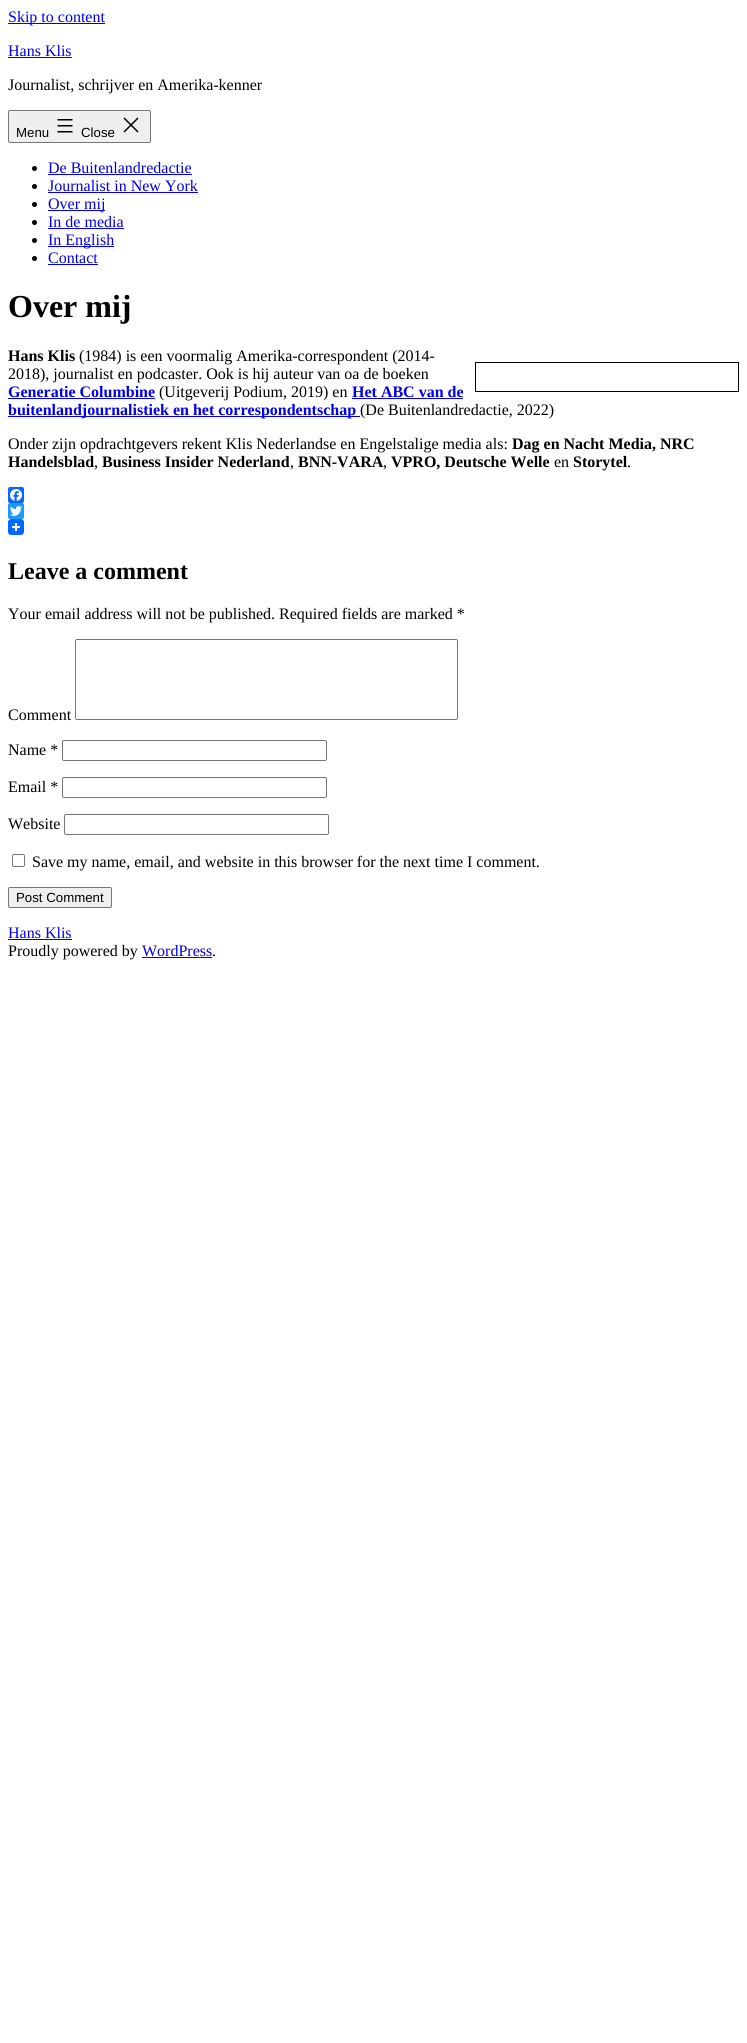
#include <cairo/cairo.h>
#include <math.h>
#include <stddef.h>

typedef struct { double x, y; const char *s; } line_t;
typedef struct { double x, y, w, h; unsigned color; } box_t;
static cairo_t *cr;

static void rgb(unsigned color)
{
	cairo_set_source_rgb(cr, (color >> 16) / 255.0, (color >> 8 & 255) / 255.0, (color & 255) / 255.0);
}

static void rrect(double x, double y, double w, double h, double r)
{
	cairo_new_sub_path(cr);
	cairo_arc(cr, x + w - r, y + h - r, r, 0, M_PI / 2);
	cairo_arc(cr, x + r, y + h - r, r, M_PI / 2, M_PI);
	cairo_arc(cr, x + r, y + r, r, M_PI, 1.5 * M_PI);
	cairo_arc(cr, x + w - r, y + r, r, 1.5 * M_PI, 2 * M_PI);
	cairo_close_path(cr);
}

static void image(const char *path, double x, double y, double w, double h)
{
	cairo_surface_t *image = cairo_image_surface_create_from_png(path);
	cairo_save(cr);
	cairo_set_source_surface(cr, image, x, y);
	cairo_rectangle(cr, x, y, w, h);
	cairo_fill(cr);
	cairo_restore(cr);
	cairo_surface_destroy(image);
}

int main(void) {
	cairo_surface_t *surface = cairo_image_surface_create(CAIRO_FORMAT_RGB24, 747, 2043);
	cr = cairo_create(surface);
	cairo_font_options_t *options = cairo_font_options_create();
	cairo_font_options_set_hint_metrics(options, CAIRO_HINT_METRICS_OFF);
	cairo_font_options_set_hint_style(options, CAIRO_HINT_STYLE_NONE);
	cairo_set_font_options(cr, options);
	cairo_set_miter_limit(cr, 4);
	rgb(0xffffff);
	cairo_paint(cr);
	rgb(0x0000ee);
	cairo_rectangle(cr, 8, 23, 97, 1);
	cairo_fill(cr);
	cairo_rectangle(cr, 8, 57, 64, 1);
	cairo_fill(cr);
	rgb(0xefefef);
	rrect(8.5, 110.5, 142, 32, 1.5);
	cairo_fill_preserve(cr);
	rgb(0x767676);
	cairo_set_line_width(cr, 1);
	cairo_stroke(cr);
	image("img/1.png", 57, 119, 16, 14);
	image("img/2.png", 123, 117, 16, 16);
	rgb(0x000000);
	cairo_arc(cr, 34.5, 168.5, 2.5, 0, 2 * M_PI);
	cairo_fill(cr);
	rgb(0x0000ee);
	cairo_rectangle(cr, 48, 174, 144, 1);
	cairo_fill(cr);
	rgb(0x000000);
	cairo_arc(cr, 34.5, 186.5, 2.5, 0, 2 * M_PI);
	cairo_fill(cr);
	rgb(0x0000ee);
	cairo_rectangle(cr, 48, 192, 150, 1);
	cairo_fill(cr);
	rgb(0x000000);
	cairo_arc(cr, 34.5, 204.5, 2.5, 0, 2 * M_PI);
	cairo_fill(cr);
	rgb(0x0000ee);
	cairo_rectangle(cr, 48, 210, 57, 1);
	cairo_fill(cr);
	rgb(0x000000);
	cairo_arc(cr, 34.5, 222.5, 2.5, 0, 2 * M_PI);
	cairo_fill(cr);
	rgb(0x0000ee);
	cairo_rectangle(cr, 48, 228, 76, 1);
	cairo_fill(cr);
	rgb(0x000000);
	cairo_arc(cr, 34.5, 240.5, 2.5, 0, 2 * M_PI);
	cairo_fill(cr);
	rgb(0x0000ee);
	cairo_rectangle(cr, 48, 246, 66, 1);
	cairo_fill(cr);
	rgb(0x000000);
	cairo_arc(cr, 34.5, 258.5, 2.5, 0, 2 * M_PI);
	cairo_fill(cr);
	{
		static const box_t items[] = {
			{48, 264, 50, 1, 0x0000ee},
			{8, 398, 147, 1, 0x0000ee},
			{352, 398, 111, 1, 0x0000ee},
			{8, 416, 352, 1, 0x0000ee},
		};
		for (size_t i = 0; i < sizeof items / sizeof *items; i++) {
			rgb(items[i].color);
			cairo_rectangle(cr, items[i].x, items[i].y, items[i].w, items[i].h);
			cairo_fill(cr);
		}
	}
	cairo_rectangle(cr, 475.5, 362.5, 263, 29);
	rgb(0x000000);
	cairo_stroke(cr);
	rgb(0x0866ff);
	rrect(8, 487, 16, 16, 2);
	cairo_fill(cr);
	image("img/3.png", 10, 489, 12, 12);
	rgb(0x1d9bf0);
	rrect(8, 503, 16, 16, 2);
	cairo_fill(cr);
	image("img/4.png", 10, 506, 12, 10);
	image("img/5.png", 8, 519, 16, 16);
	rrect(75.5, 639.5, 382, 80, 1.5);
	rgb(0x767676);
	cairo_stroke(cr);
	rrect(62.5, 740.5, 264, 20, 1.5);
	cairo_stroke(cr);
	rrect(62.5, 777.5, 264, 20, 1.5);
	cairo_stroke(cr);
	rrect(64.5, 814.5, 264, 20, 1.5);
	cairo_stroke(cr);
	rrect(12.5, 854.5, 12, 12, 1.5);
	cairo_stroke(cr);
	rgb(0xefefef);
	rrect(8.5, 887.5, 103, 20, 1.5);
	cairo_fill_preserve(cr);
	rgb(0x767676);
	cairo_stroke(cr);
	rgb(0x0000ee);
	cairo_rectangle(cr, 8, 939, 64, 1);
	cairo_fill(cr);
	cairo_rectangle(cr, 142, 957, 70, 1);
	cairo_fill(cr);
	cairo_select_font_face(cr, "Liberation Serif", CAIRO_FONT_SLANT_NORMAL, CAIRO_FONT_WEIGHT_NORMAL);
	cairo_set_font_size(cr, 16);
	cairo_move_to(cr, 8, 22);
	cairo_show_text(cr, "Skip to content");
	cairo_move_to(cr, 8, 56);
	cairo_show_text(cr, "Hans Klis");
	rgb(0x000000);
	cairo_move_to(cr, 8, 90);
	cairo_show_text(cr, "Journalist, schrijver en Amerika-kenner");
	cairo_select_font_face(cr, "Liberation Sans", CAIRO_FONT_SLANT_NORMAL, CAIRO_FONT_WEIGHT_NORMAL);
	cairo_set_font_size(cr, 13.25);
	cairo_move_to(cr, 16, 137);
	cairo_show_text(cr, "Menu");
	cairo_move_to(cr, 81, 137);
	cairo_show_text(cr, "Close");
	cairo_select_font_face(cr, "Liberation Serif", CAIRO_FONT_SLANT_NORMAL, CAIRO_FONT_WEIGHT_NORMAL);
	cairo_set_font_size(cr, 16);
	rgb(0x0000ee);
	{
		static const line_t items[] = {
			{48, 173, "De Buitenlandredactie"},
			{48, 191, "Journalist in New York"},
			{48, 209, "Over mij"},
			{48, 227, "In de media"},
			{48, 245, "In English"},
			{48, 263, "Contact"},
		};
		for (size_t i = 0; i < sizeof items / sizeof *items; i++) {
			cairo_move_to(cr, items[i].x, items[i].y);
			cairo_show_text(cr, items[i].s);
		}
	}
	cairo_select_font_face(cr, "Liberation Serif", CAIRO_FONT_SLANT_NORMAL, CAIRO_FONT_WEIGHT_BOLD);
	cairo_set_font_size(cr, 32);
	rgb(0x000000);
	cairo_move_to(cr, 8, 317);
	cairo_show_text(cr, "Over mij");
	cairo_set_font_size(cr, 16);
	cairo_move_to(cr, 8, 361);
	cairo_show_text(cr, "Hans Klis");
	cairo_select_font_face(cr, "Liberation Serif", CAIRO_FONT_SLANT_NORMAL, CAIRO_FONT_WEIGHT_NORMAL);
	cairo_move_to(cr, 79, 361);
	cairo_show_text(cr, "(1984) is een voormalig Amerika-correspondent (2014-");
	cairo_move_to(cr, 8, 379);
	cairo_show_text(cr, "2018), journalist en podcaster. Ook is hij auteur van oa de boeken");
	cairo_select_font_face(cr, "Liberation Serif", CAIRO_FONT_SLANT_NORMAL, CAIRO_FONT_WEIGHT_BOLD);
	rgb(0x0000ee);
	cairo_move_to(cr, 8, 397);
	cairo_show_text(cr, "Generatie Columbine");
	cairo_select_font_face(cr, "Liberation Serif", CAIRO_FONT_SLANT_NORMAL, CAIRO_FONT_WEIGHT_NORMAL);
	rgb(0x000000);
	cairo_move_to(cr, 159, 397);
	cairo_show_text(cr, "(Uitgeverij Podium, 2019) en");
	cairo_select_font_face(cr, "Liberation Serif", CAIRO_FONT_SLANT_NORMAL, CAIRO_FONT_WEIGHT_BOLD);
	rgb(0x0000ee);
	cairo_move_to(cr, 352, 397);
	cairo_show_text(cr, "Het ABC van de");
	cairo_move_to(cr, 8, 415);
	cairo_show_text(cr, "buitenlandjournalistiek en het correspondentschap");
	cairo_select_font_face(cr, "Liberation Serif", CAIRO_FONT_SLANT_NORMAL, CAIRO_FONT_WEIGHT_NORMAL);
	rgb(0x000000);
	cairo_move_to(cr, 360, 415);
	cairo_show_text(cr, "(De Buitenlandredactie, 2022)");
	cairo_move_to(cr, 8, 449);
	cairo_show_text(cr, "Onder zijn opdrachtgevers rekent Klis Nederlandse en Engelstalige media als:");
	cairo_select_font_face(cr, "Liberation Serif", CAIRO_FONT_SLANT_NORMAL, CAIRO_FONT_WEIGHT_BOLD);
	cairo_move_to(cr, 512, 449);
	cairo_show_text(cr, "Dag en Nacht Media, NRC");
	cairo_move_to(cr, 8, 467);
	cairo_show_text(cr, "Handelsblad");
	cairo_select_font_face(cr, "Liberation Serif", CAIRO_FONT_SLANT_NORMAL, CAIRO_FONT_WEIGHT_NORMAL);
	cairo_move_to(cr, 94, 467);
	cairo_show_text(cr, ",");
	cairo_select_font_face(cr, "Liberation Serif", CAIRO_FONT_SLANT_NORMAL, CAIRO_FONT_WEIGHT_BOLD);
	cairo_move_to(cr, 102, 467);
	cairo_show_text(cr, "Business Insider Nederland");
	cairo_select_font_face(cr, "Liberation Serif", CAIRO_FONT_SLANT_NORMAL, CAIRO_FONT_WEIGHT_NORMAL);
	cairo_move_to(cr, 290, 467);
	cairo_show_text(cr, ",");
	cairo_select_font_face(cr, "Liberation Serif", CAIRO_FONT_SLANT_NORMAL, CAIRO_FONT_WEIGHT_BOLD);
	cairo_move_to(cr, 298, 467);
	cairo_show_text(cr, "BNN-VARA");
	cairo_select_font_face(cr, "Liberation Serif", CAIRO_FONT_SLANT_NORMAL, CAIRO_FONT_WEIGHT_NORMAL);
	cairo_move_to(cr, 383, 467);
	cairo_show_text(cr, ",");
	cairo_select_font_face(cr, "Liberation Serif", CAIRO_FONT_SLANT_NORMAL, CAIRO_FONT_WEIGHT_BOLD);
	cairo_move_to(cr, 391, 467);
	cairo_show_text(cr, "VPRO, Deutsche Welle");
	cairo_select_font_face(cr, "Liberation Serif", CAIRO_FONT_SLANT_NORMAL, CAIRO_FONT_WEIGHT_NORMAL);
	cairo_move_to(cr, 554, 467);
	cairo_show_text(cr, "en");
	cairo_select_font_face(cr, "Liberation Serif", CAIRO_FONT_SLANT_NORMAL, CAIRO_FONT_WEIGHT_BOLD);
	cairo_move_to(cr, 573, 467);
	cairo_show_text(cr, "Storytel");
	cairo_select_font_face(cr, "Liberation Serif", CAIRO_FONT_SLANT_NORMAL, CAIRO_FONT_WEIGHT_NORMAL);
	cairo_move_to(cr, 627, 467);
	cairo_show_text(cr, ".");
	cairo_select_font_face(cr, "Liberation Serif", CAIRO_FONT_SLANT_NORMAL, CAIRO_FONT_WEIGHT_BOLD);
	cairo_set_font_size(cr, 24);
	cairo_move_to(cr, 8, 579);
	cairo_show_text(cr, "Leave a comment");
	cairo_select_font_face(cr, "Liberation Serif", CAIRO_FONT_SLANT_NORMAL, CAIRO_FONT_WEIGHT_NORMAL);
	cairo_set_font_size(cr, 16);
	{
		static const line_t items[] = {
			{8, 619, "Your email address will not be published. Required fields are marked *"},
			{8, 720, "Comment"},
			{8, 755, "Name *"},
			{8, 792, "Email *"},
			{8, 829, "Website"},
			{32, 867, "Save my name, email, and website in this browser for the next time I comment."},
		};
		for (size_t i = 0; i < sizeof items / sizeof *items; i++) {
			cairo_move_to(cr, items[i].x, items[i].y);
			cairo_show_text(cr, items[i].s);
		}
	}
	cairo_select_font_face(cr, "Liberation Sans", CAIRO_FONT_SLANT_NORMAL, CAIRO_FONT_WEIGHT_NORMAL);
	cairo_set_font_size(cr, 13.25);
	cairo_move_to(cr, 16, 902);
	cairo_show_text(cr, "Post Comment");
	cairo_select_font_face(cr, "Liberation Serif", CAIRO_FONT_SLANT_NORMAL, CAIRO_FONT_WEIGHT_NORMAL);
	cairo_set_font_size(cr, 16);
	rgb(0x0000ee);
	cairo_move_to(cr, 8, 938);
	cairo_show_text(cr, "Hans Klis");
	rgb(0x000000);
	cairo_move_to(cr, 8, 956);
	cairo_show_text(cr, "Proudly powered by");
	rgb(0x0000ee);
	cairo_move_to(cr, 142, 956);
	cairo_show_text(cr, "WordPress");
	rgb(0x000000);
	cairo_move_to(cr, 212, 956);
	cairo_show_text(cr, ".");
	cairo_surface_write_to_png(surface, "page.png");
	cairo_font_options_destroy(options);
	cairo_destroy(cr);
	cairo_surface_destroy(surface);
	return 0;
}
